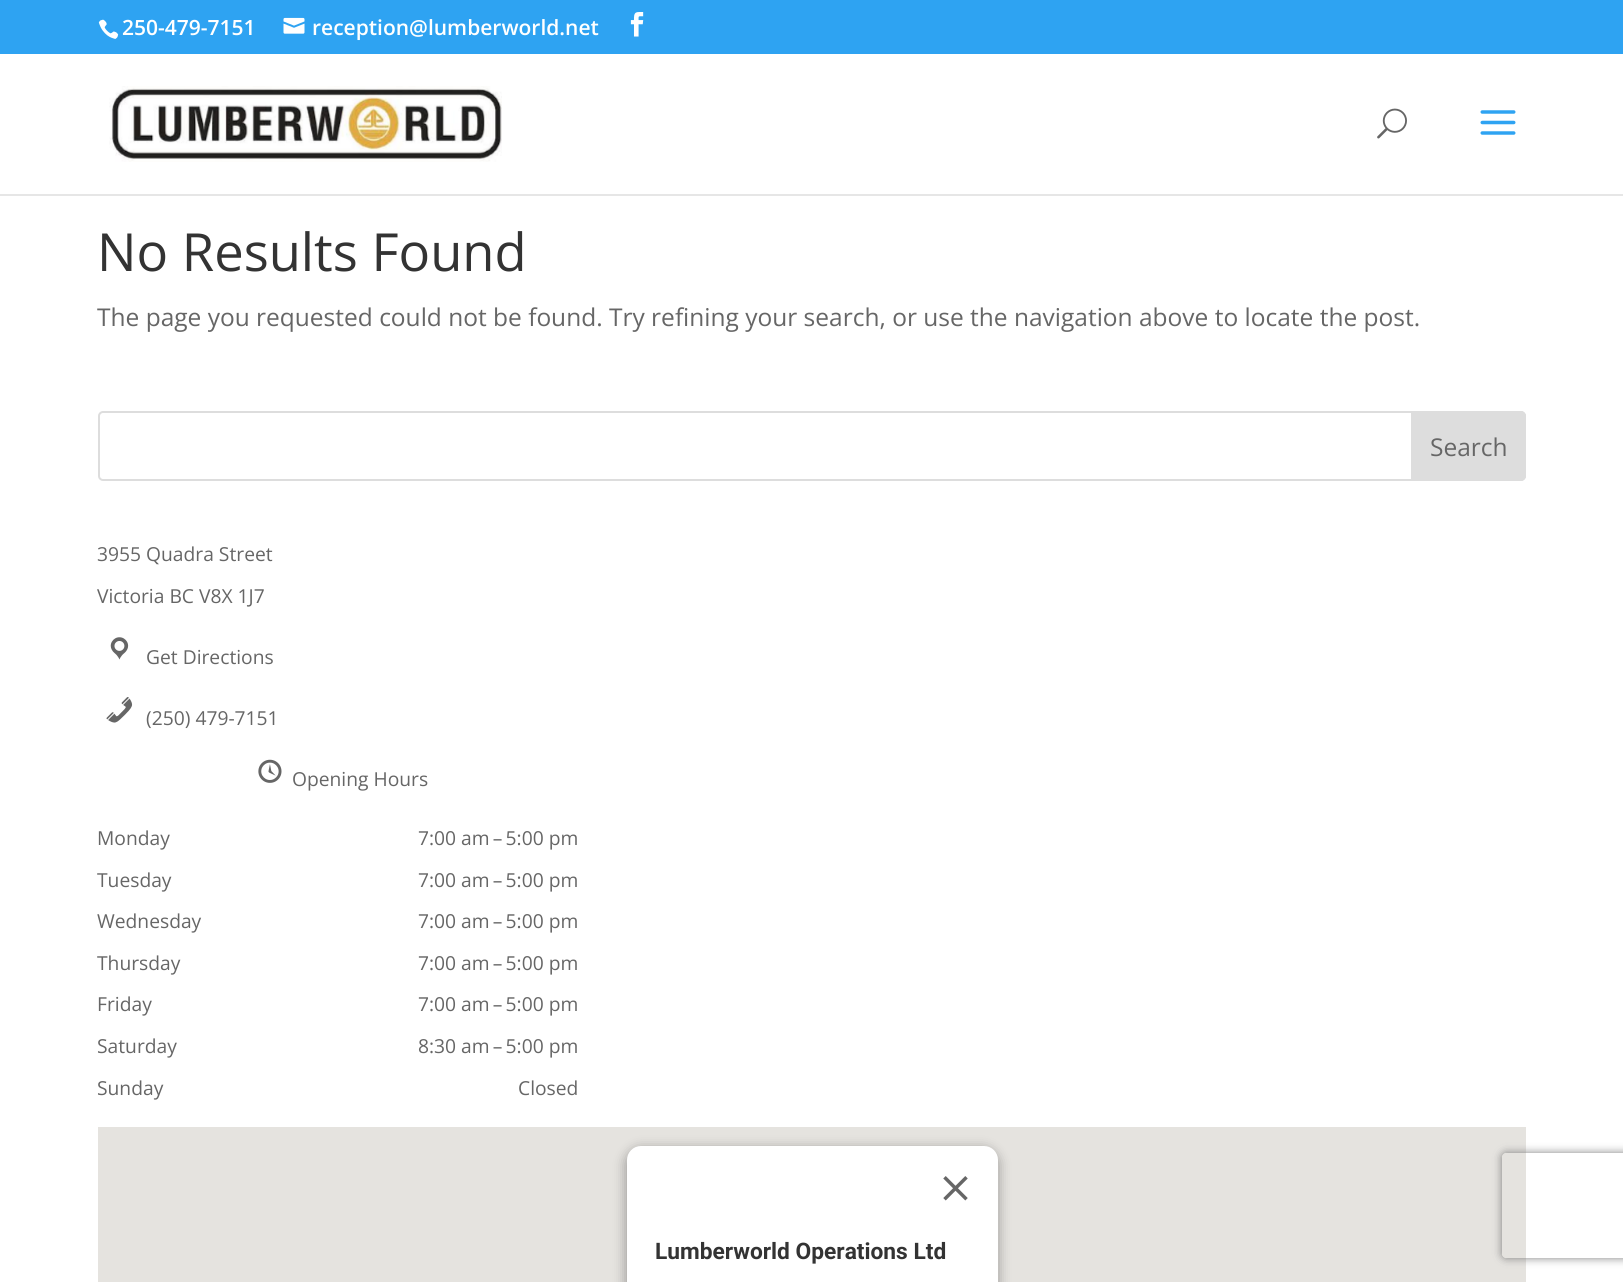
#include <cairo/cairo.h>
#include <math.h>
#include <stddef.h>

typedef struct { double x, y; const char *s; } line_t;
static cairo_t *cr;

static void rgb(unsigned color)
{
	cairo_set_source_rgb(cr, (color >> 16) / 255.0, (color >> 8 & 255) / 255.0, (color & 255) / 255.0);
}

static void rrect(double x, double y, double w, double h, double r)
{
	cairo_new_sub_path(cr);
	cairo_arc(cr, x + w - r, y + h - r, r, 0, M_PI / 2);
	cairo_arc(cr, x + r, y + h - r, r, M_PI / 2, M_PI);
	cairo_arc(cr, x + r, y + r, r, M_PI, 1.5 * M_PI);
	cairo_arc(cr, x + w - r, y + r, r, 1.5 * M_PI, 2 * M_PI);
	cairo_close_path(cr);
}

static void soft_shadow(double x, double y, double w, double h, double r, double blur, double alpha)
{
	cairo_push_group_with_content(cr, CAIRO_CONTENT_ALPHA);
	cairo_set_operator(cr, CAIRO_OPERATOR_SOURCE);
	for (int i = 15; i >= -15 && fmin(w, h) + blur * i / 3 > 0; i -= 2) {
		double e = blur * i / 6;
		cairo_set_source_rgba(cr, 0, 0, 0, alpha * erfc((i - 1) / 8.5) / 2);
		rrect(x - e, y - e, w + 2 * e, h + 2 * e, fmax(0, fmin(r + e + blur * .6, fmin(w, h) / 2 + e)));
		cairo_fill(cr);
	}
	cairo_pattern_t *soft = cairo_pop_group(cr);
	cairo_mask(cr, soft);
	cairo_pattern_destroy(soft);
}

static void image(const char *path, double x, double y, double w, double h)
{
	cairo_surface_t *image = cairo_image_surface_create_from_png(path);
	cairo_save(cr);
	cairo_set_source_surface(cr, image, x, y);
	cairo_rectangle(cr, x, y, w, h);
	cairo_fill(cr);
	cairo_restore(cr);
	cairo_surface_destroy(image);
}

int main(void) {
	cairo_surface_t *surface = cairo_image_surface_create(CAIRO_FORMAT_RGB24, 1623, 1282);
	cr = cairo_create(surface);
	cairo_font_options_t *options = cairo_font_options_create();
	cairo_font_options_set_hint_metrics(options, CAIRO_HINT_METRICS_OFF);
	cairo_font_options_set_hint_style(options, CAIRO_HINT_STYLE_NONE);
	cairo_set_font_options(cr, options);
	cairo_set_miter_limit(cr, 4);
	rgb(0xffffff);
	cairo_paint(cr);
	rgb(0x2ea3f2);
	cairo_rectangle(cr, 0, 0, 1623, 54);
	cairo_fill(cr);
	image("img/1.png", 98, 19, 21, 20);
	image("img/2.png", 283, 17, 22, 17);
	image("img/3.png", 630, 12, 14, 25);
	rgb(0xe6e6e6);
	cairo_rectangle(cr, 0, 194, 1623, 2);
	cairo_fill(cr);
	image("img/4.png", 109, 86, 393, 76);
	image("img/5.png", 1377, 108, 30, 31);
	image("img/6.png", 1480, 110, 36, 25);
	rrect(99, 412, 1426, 68, 4);
	rgb(0xdddddd);
	cairo_stroke(cr);
	cairo_new_path(cr);
	cairo_move_to(cr, 1412, 412);
	cairo_line_to(cr, 1521, 412);
	cairo_curve_to(cr, 1523, 412, 1525, 414, 1525, 416);
	cairo_line_to(cr, 1525, 476);
	cairo_curve_to(cr, 1525, 478, 1523, 480, 1521, 480);
	cairo_line_to(cr, 1412, 480);
	cairo_close_path(cr);
	cairo_fill_preserve(cr);
	cairo_stroke(cr);
	image("img/7.png", 110, 637, 19, 23);
	image("img/8.png", 106, 697, 27, 26);
	image("img/9.png", 258, 759, 24, 24);
	rgb(0xe5e3df);
	cairo_rectangle(cr, 98, 1127, 1428, 155);
	cairo_fill(cr);
	rgb(0x000000);
	soft_shadow(625, 1148, 374, 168, 16, 6, 0.3);
	rgb(0xffffff);
	rrect(627, 1146, 371, 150, 14);
	cairo_fill(cr);
	image("img/10.png", 943, 1176, 25, 25);
	cairo_save(cr);
	cairo_set_fill_rule(cr, CAIRO_FILL_RULE_EVEN_ODD);
	cairo_new_path(cr);
	cairo_move_to(cr, 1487, 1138);
	cairo_line_to(cr, 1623, 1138);
	cairo_line_to(cr, 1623, 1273);
	cairo_line_to(cr, 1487, 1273);
	cairo_close_path(cr);
	cairo_move_to(cr, 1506, 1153);
	cairo_line_to(cr, 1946, 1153);
	cairo_curve_to(cr, 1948, 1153, 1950, 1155, 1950, 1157);
	cairo_line_to(cr, 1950, 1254);
	cairo_curve_to(cr, 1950, 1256, 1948, 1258, 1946, 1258);
	cairo_line_to(cr, 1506, 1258);
	cairo_curve_to(cr, 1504, 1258, 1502, 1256, 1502, 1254);
	cairo_line_to(cr, 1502, 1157);
	cairo_curve_to(cr, 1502, 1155, 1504, 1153, 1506, 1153);
	cairo_close_path(cr);
	cairo_clip(cr);
	rgb(0x808080);
	soft_shadow(1502, 1153, 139, 105, 4, 4.5, 1);
	cairo_restore(cr);
	cairo_select_font_face(cr, "Open Sans SemiBold", CAIRO_FONT_SLANT_NORMAL, CAIRO_FONT_WEIGHT_NORMAL);
	cairo_set_font_size(cr, 21);
	cairo_move_to(cr, 122, 35);
	cairo_show_text(cr, "250-479-7151");
	cairo_move_to(cr, 312, 35);
	cairo_show_text(cr, "reception@lumberworld.net");
	cairo_select_font_face(cr, "Open Sans", CAIRO_FONT_SLANT_NORMAL, CAIRO_FONT_WEIGHT_NORMAL);
	cairo_set_font_size(cr, 52.5);
	rgb(0x333333);
	cairo_move_to(cr, 97, 271);
	cairo_show_text(cr, "No Results Found");
	cairo_set_font_size(cr, 24.5);
	rgb(0x666666);
	cairo_move_to(cr, 97, 326);
	cairo_show_text(cr, "The page you requested could not be found. Try refining your search, or use the navigation above to locate the post.");
	cairo_move_to(cr, 1430, 456);
	cairo_show_text(cr, "Search");
	cairo_set_font_size(cr, 19.25);
	{
		static const line_t items[] = {
			{97, 561, "3955 Quadra Street"},
			{97, 603, "Victoria BC V8X 1J7"},
			{146, 664, "Get Directions"},
			{146, 725, "(250) 479-7151"},
			{292, 786, "Opening Hours"},
			{97, 845, "Monday"},
			{418, 845, "7:00 am – 5:00 pm"},
			{97, 887, "Tuesday"},
			{418, 887, "7:00 am – 5:00 pm"},
			{97, 928, "Wednesday"},
			{418, 928, "7:00 am – 5:00 pm"},
			{97, 970, "Thursday"},
			{418, 970, "7:00 am – 5:00 pm"},
			{97, 1011, "Friday"},
			{418, 1011, "7:00 am – 5:00 pm"},
			{97, 1053, "Saturday"},
			{418, 1053, "8:30 am – 5:00 pm"},
			{97, 1095, "Sunday"},
			{518, 1095, "Closed"},
		};
		for (size_t i = 0; i < sizeof items / sizeof *items; i++) {
			cairo_move_to(cr, items[i].x, items[i].y);
			cairo_show_text(cr, items[i].s);
		}
	}
	cairo_select_font_face(cr, "Roboto", CAIRO_FONT_SLANT_NORMAL, CAIRO_FONT_WEIGHT_BOLD);
	cairo_set_font_size(cr, 22.75);
	rgb(0x333333);
	cairo_move_to(cr, 655, 1259);
	cairo_show_text(cr, "Lumberworld Operations Ltd");
	cairo_surface_write_to_png(surface, "page.png");
	cairo_font_options_destroy(options);
	cairo_destroy(cr);
	cairo_surface_destroy(surface);
	return 0;
}
